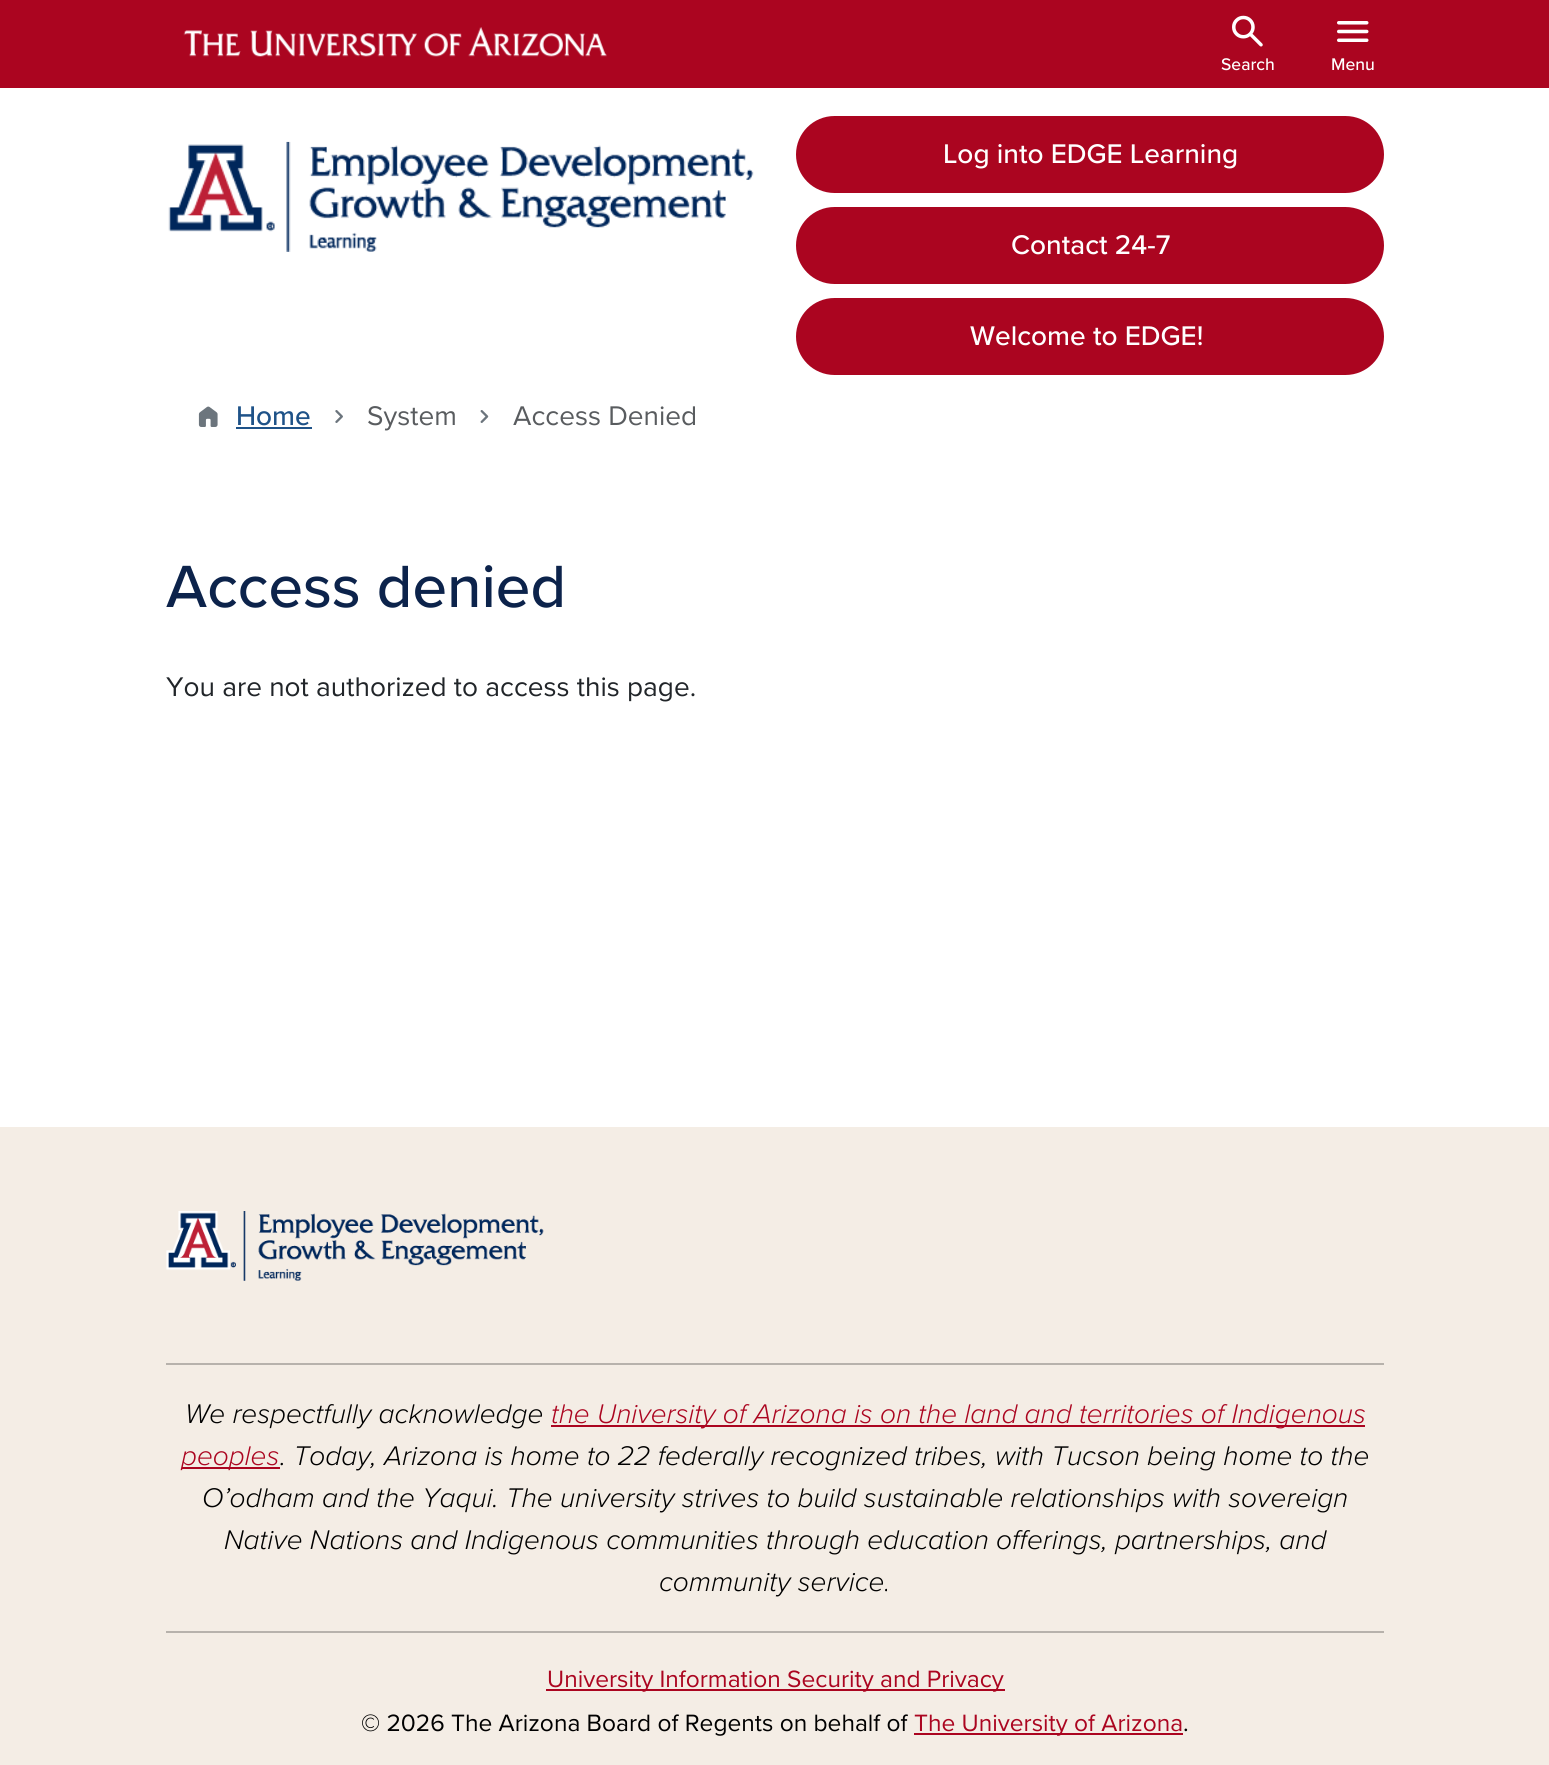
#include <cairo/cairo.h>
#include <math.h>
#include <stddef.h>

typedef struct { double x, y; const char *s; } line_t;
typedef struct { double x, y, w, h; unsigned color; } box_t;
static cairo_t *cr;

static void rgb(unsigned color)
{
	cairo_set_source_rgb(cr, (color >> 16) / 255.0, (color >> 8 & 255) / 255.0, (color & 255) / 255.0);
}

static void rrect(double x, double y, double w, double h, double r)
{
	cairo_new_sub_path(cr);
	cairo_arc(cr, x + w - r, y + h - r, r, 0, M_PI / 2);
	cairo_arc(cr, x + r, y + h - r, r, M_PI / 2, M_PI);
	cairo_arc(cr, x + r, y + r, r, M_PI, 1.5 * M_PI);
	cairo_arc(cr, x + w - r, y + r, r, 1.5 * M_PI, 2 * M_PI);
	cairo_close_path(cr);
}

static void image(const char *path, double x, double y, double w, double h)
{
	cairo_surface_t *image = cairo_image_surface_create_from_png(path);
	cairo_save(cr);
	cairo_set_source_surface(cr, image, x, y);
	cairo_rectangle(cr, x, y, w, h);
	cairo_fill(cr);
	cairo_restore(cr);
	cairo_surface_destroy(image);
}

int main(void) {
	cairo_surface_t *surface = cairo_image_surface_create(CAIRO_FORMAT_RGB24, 1549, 1765);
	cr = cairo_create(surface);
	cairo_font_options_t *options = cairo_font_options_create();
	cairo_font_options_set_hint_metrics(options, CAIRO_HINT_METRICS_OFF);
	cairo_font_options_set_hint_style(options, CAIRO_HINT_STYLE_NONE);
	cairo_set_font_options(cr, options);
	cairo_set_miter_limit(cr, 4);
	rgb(0xffffff);
	cairo_paint(cr);
	rgb(0xab0520);
	cairo_rectangle(cr, 0, 0, 1549, 88);
	cairo_fill(cr);
	image("img/1.png", 183, 27, 424, 30);
	image("img/2.png", 1232, 15, 31, 32);
	image("img/3.png", 1337, 21, 32, 21);
	image("img/4.png", 168, 141, 586, 111);
	rrect(798, 118, 584, 73, 36.5);
	cairo_fill_preserve(cr);
	cairo_set_line_width(cr, 4);
	cairo_stroke(cr);
	rrect(798, 209, 584, 73, 36.5);
	cairo_fill_preserve(cr);
	cairo_stroke(cr);
	rrect(798, 300, 584, 73, 36.5);
	cairo_fill_preserve(cr);
	cairo_stroke(cr);
	image("img/5.png", 198, 406, 20, 21);
	rgb(0x1e5288);
	cairo_rectangle(cr, 236, 427, 76, 2);
	cairo_fill(cr);
	image("img/6.png", 335, 410, 8, 13);
	image("img/7.png", 480, 410, 9, 13);
	rgb(0xf4ede5);
	cairo_rectangle(cr, 0, 1127, 1549, 638);
	cairo_fill(cr);
	image("img/8.png", 166, 1211, 378, 70);
	{
		static const box_t items[] = {
			{166, 1363, 1218, 2, 0xb7b2ac},
			{551, 1425, 814, 2, 0xab0520},
			{182, 1467, 98, 2, 0xab0520},
			{166, 1631, 1218, 2, 0xb7b2ac},
			{546, 1689, 459, 2, 0xab0520},
			{914, 1733, 269, 2, 0xab0520},
		};
		for (size_t i = 0; i < sizeof items / sizeof *items; i++) {
			rgb(items[i].color);
			cairo_rectangle(cr, items[i].x, items[i].y, items[i].w, items[i].h);
			cairo_fill(cr);
		}
	}
	cairo_select_font_face(cr, "Proxima Nova Medium", CAIRO_FONT_SLANT_NORMAL, CAIRO_FONT_WEIGHT_NORMAL);
	cairo_set_font_size(cr, 17.5);
	rgb(0xffffff);
	cairo_move_to(cr, 1221, 70);
	cairo_show_text(cr, "Search");
	cairo_move_to(cr, 1331, 70);
	cairo_show_text(cr, "Menu");
	cairo_set_font_size(cr, 28);
	{
		static const line_t items[] = {
			{943, 163, "Log into EDGE Learning"},
			{1011, 254, "Contact 24-7"},
			{970, 345, "Welcome to EDGE!"},
		};
		for (size_t i = 0; i < sizeof items / sizeof *items; i++) {
			cairo_move_to(cr, items[i].x, items[i].y);
			cairo_show_text(cr, items[i].s);
		}
	}
	rgb(0x1e5288);
	cairo_move_to(cr, 236, 425);
	cairo_show_text(cr, "Home");
	cairo_select_font_face(cr, "Proxima Nova", CAIRO_FONT_SLANT_NORMAL, CAIRO_FONT_WEIGHT_NORMAL);
	rgb(0x595c5f);
	cairo_move_to(cr, 367, 425);
	cairo_show_text(cr, "System");
	cairo_move_to(cr, 513, 425);
	cairo_show_text(cr, "Access Denied");
	cairo_select_font_face(cr, "Proxima Nova Medium", CAIRO_FONT_SLANT_NORMAL, CAIRO_FONT_WEIGHT_NORMAL);
	cairo_set_font_size(cr, 61.75);
	rgb(0x0c234b);
	cairo_move_to(cr, 166, 607);
	cairo_show_text(cr, "Access denied");
	cairo_select_font_face(cr, "Proxima Nova", CAIRO_FONT_SLANT_NORMAL, CAIRO_FONT_WEIGHT_NORMAL);
	cairo_set_font_size(cr, 28);
	rgb(0x212529);
	cairo_move_to(cr, 166, 696);
	cairo_show_text(cr, "You are not authorized to access this page.");
	cairo_select_font_face(cr, "Proxima Nova Light", CAIRO_FONT_SLANT_ITALIC, CAIRO_FONT_WEIGHT_NORMAL);
	rgb(0x000000);
	cairo_move_to(cr, 185, 1423);
	cairo_show_text(cr, "We respectfully acknowledge");
	rgb(0xab0520);
	cairo_move_to(cr, 551, 1423);
	cairo_show_text(cr, "the University of Arizona is on the land and territories of Indigenous");
	cairo_move_to(cr, 181, 1465);
	cairo_show_text(cr, "peoples");
	rgb(0x000000);
	{
		static const line_t items[] = {
			{280, 1465, ". Today, Arizona is home to 22 federally recognized tribes, with Tucson being home to the"},
			{202, 1507, "O’odham and the Yaqui. The university strives to build sustainable relationships with sovereign"},
			{224, 1549, "Native Nations and Indigenous communities through education offerings, partnerships, and"},
			{659, 1591, "community service."},
		};
		for (size_t i = 0; i < sizeof items / sizeof *items; i++) {
			cairo_move_to(cr, items[i].x, items[i].y);
			cairo_show_text(cr, items[i].s);
		}
	}
	cairo_select_font_face(cr, "Proxima Nova", CAIRO_FONT_SLANT_NORMAL, CAIRO_FONT_WEIGHT_NORMAL);
	cairo_set_font_size(cr, 24.5);
	rgb(0xab0520);
	cairo_move_to(cr, 547, 1687);
	cairo_show_text(cr, "University Information Security and Privacy");
	rgb(0x000000);
	cairo_move_to(cr, 361, 1731);
	cairo_show_text(cr, "© 2026 The Arizona Board of Regents on behalf of");
	rgb(0xab0520);
	cairo_move_to(cr, 914, 1731);
	cairo_show_text(cr, "The University of Arizona");
	rgb(0x000000);
	cairo_move_to(cr, 1183, 1731);
	cairo_show_text(cr, ".");
	cairo_surface_write_to_png(surface, "page.png");
	cairo_font_options_destroy(options);
	cairo_destroy(cr);
	cairo_surface_destroy(surface);
	return 0;
}
